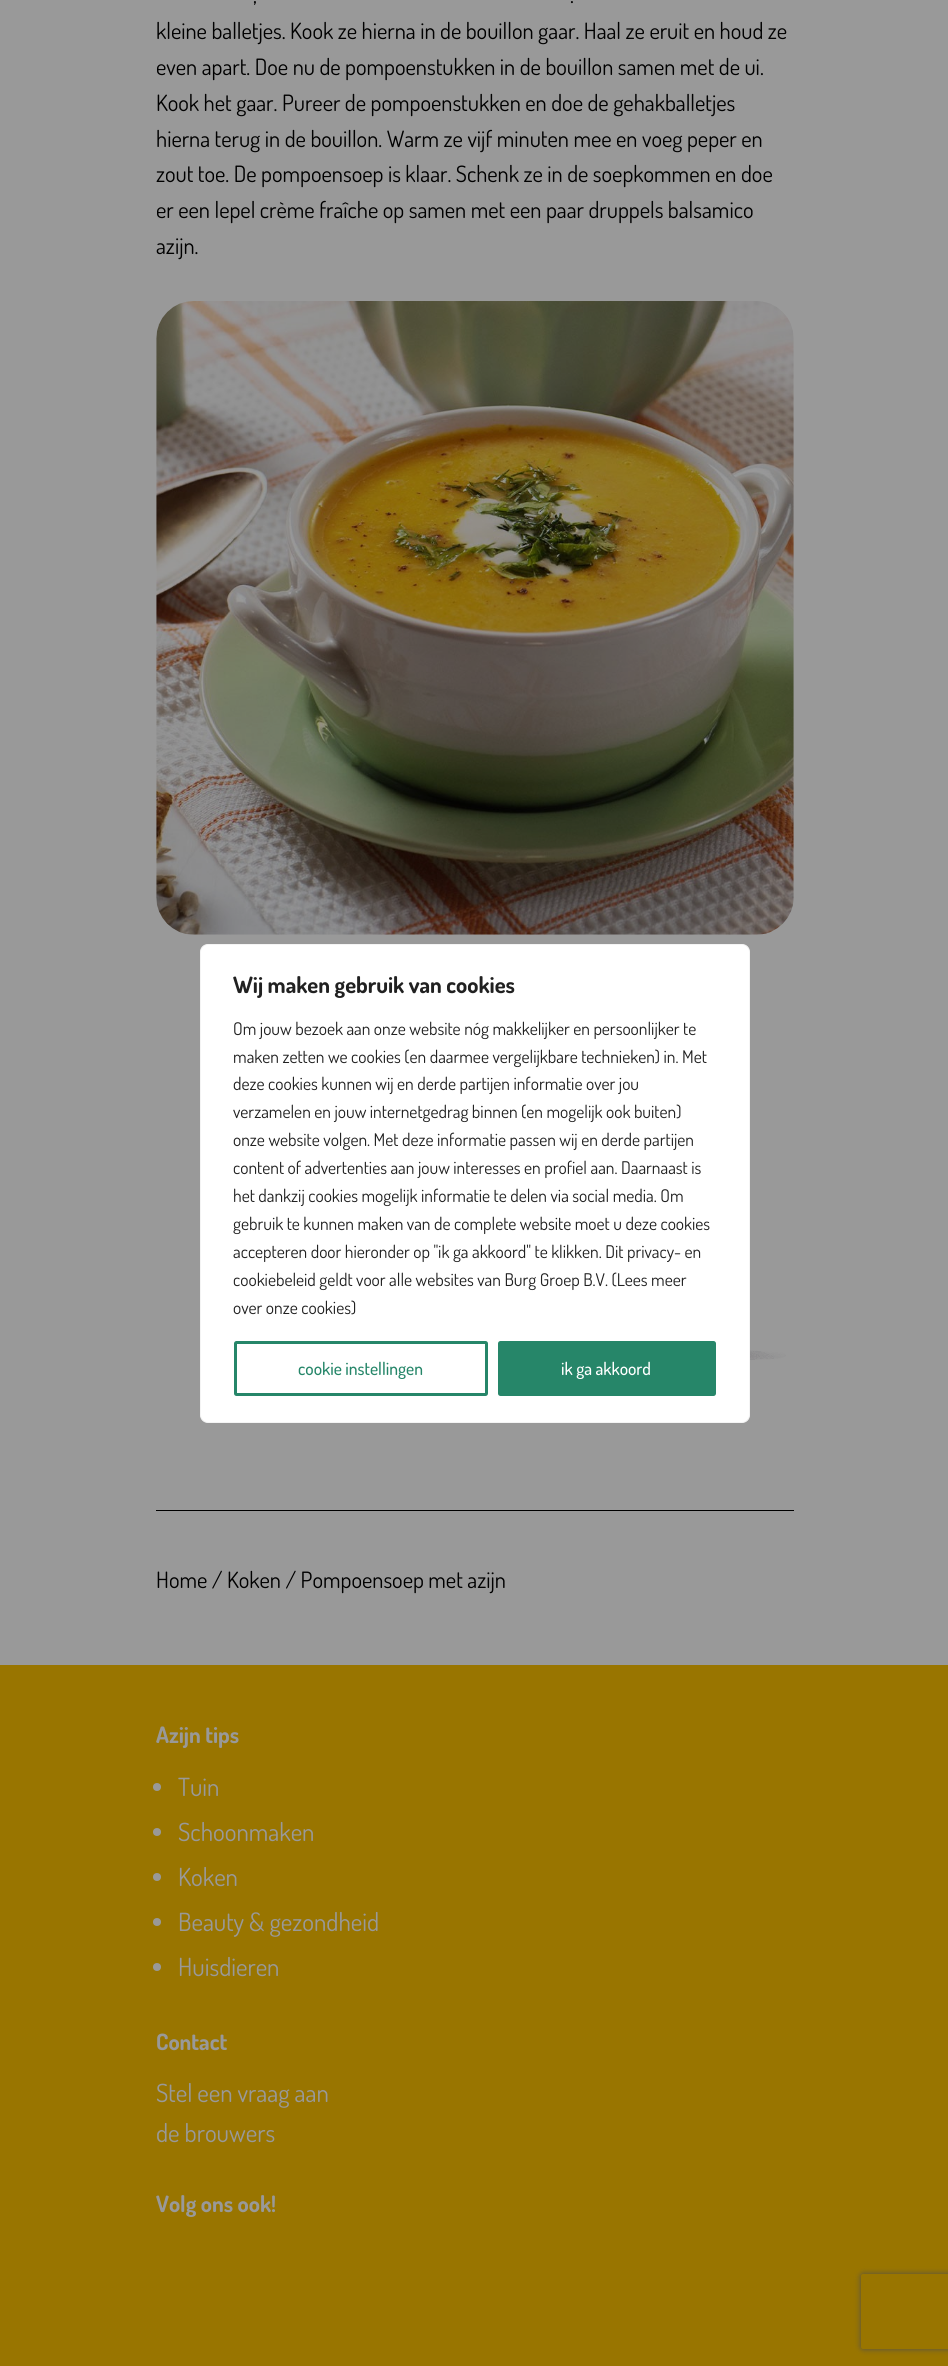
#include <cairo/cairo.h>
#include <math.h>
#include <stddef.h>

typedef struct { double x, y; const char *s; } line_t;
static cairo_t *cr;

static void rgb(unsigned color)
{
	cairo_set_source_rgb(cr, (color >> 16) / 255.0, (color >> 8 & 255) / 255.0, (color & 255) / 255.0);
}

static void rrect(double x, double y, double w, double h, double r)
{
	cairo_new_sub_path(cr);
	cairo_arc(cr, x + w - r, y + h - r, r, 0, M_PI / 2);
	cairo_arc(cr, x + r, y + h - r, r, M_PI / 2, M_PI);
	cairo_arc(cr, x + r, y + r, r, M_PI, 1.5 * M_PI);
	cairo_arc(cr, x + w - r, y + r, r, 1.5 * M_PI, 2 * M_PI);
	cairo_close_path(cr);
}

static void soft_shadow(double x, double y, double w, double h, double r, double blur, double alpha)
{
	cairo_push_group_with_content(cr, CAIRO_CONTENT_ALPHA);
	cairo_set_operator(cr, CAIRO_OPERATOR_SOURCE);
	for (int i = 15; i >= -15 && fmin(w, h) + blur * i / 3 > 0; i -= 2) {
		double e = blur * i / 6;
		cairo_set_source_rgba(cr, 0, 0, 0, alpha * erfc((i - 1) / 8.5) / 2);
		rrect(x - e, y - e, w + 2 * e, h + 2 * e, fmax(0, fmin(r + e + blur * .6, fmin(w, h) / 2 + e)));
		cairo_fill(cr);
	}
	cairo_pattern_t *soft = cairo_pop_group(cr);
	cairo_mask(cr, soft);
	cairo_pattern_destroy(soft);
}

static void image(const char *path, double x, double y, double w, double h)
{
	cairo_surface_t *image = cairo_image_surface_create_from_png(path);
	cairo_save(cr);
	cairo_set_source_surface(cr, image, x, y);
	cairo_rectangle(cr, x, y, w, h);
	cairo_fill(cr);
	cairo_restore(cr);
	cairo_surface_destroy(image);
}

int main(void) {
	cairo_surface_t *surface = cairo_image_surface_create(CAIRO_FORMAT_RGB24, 948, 2366);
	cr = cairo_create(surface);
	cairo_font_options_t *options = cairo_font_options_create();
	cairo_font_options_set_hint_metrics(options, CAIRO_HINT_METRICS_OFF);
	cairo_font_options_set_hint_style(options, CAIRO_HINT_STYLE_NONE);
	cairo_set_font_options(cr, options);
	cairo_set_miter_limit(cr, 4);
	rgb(0x999999);
	cairo_paint(cr);
	image("img/1.png", 156, 301, 638, 634);
	image("img/2.png", 750, 1350, 36, 11);
	rgb(0xffffff);
	rrect(200.5, 944.5, 549, 478, 7.5);
	cairo_fill_preserve(cr);
	rgb(0xf4f4f4);
	cairo_set_line_width(cr, 1);
	cairo_stroke(cr);
	rrect(235.5, 1342.5, 251, 52, 1);
	rgb(0x268669);
	cairo_set_line_width(cr, 3);
	cairo_stroke(cr);
	rrect(499.5, 1342.5, 215, 52, 1);
	cairo_fill_preserve(cr);
	cairo_stroke(cr);
	rgb(0x000000);
	cairo_rectangle(cr, 156, 1510, 638, 1);
	cairo_fill(cr);
	rgb(0x997500);
	cairo_rectangle(cr, 0, 1665, 948, 701);
	cairo_fill(cr);
	rgb(0x999999);
	cairo_arc(cr, 157, 1787, 4, 0, 2 * M_PI);
	cairo_fill(cr);
	cairo_arc(cr, 157, 1832, 4, 0, 2 * M_PI);
	cairo_fill(cr);
	cairo_arc(cr, 157, 1877, 4, 0, 2 * M_PI);
	cairo_fill(cr);
	cairo_arc(cr, 157, 1922, 4, 0, 2 * M_PI);
	cairo_fill(cr);
	cairo_arc(cr, 157, 1967, 4, 0, 2 * M_PI);
	cairo_fill(cr);
	cairo_save(cr);
	cairo_set_fill_rule(cr, CAIRO_FILL_RULE_EVEN_ODD);
	cairo_new_path(cr);
	cairo_move_to(cr, 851, 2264);
	cairo_line_to(cr, 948, 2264);
	cairo_line_to(cr, 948, 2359);
	cairo_line_to(cr, 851, 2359);
	cairo_close_path(cr);
	cairo_move_to(cr, 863.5, 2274);
	cairo_line_to(cr, 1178.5, 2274);
	cairo_curve_to(cr, 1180, 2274, 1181, 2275, 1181, 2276.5);
	cairo_line_to(cr, 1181, 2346.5);
	cairo_curve_to(cr, 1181, 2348, 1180, 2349, 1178.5, 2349);
	cairo_line_to(cr, 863.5, 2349);
	cairo_curve_to(cr, 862, 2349, 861, 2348, 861, 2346.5);
	cairo_line_to(cr, 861, 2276.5);
	cairo_curve_to(cr, 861, 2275, 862, 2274, 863.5, 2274);
	cairo_close_path(cr);
	cairo_clip(cr);
	rgb(0x4d4d4d);
	soft_shadow(861, 2274, 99, 75, 2.5, 3, 1);
	cairo_restore(cr);
	cairo_select_font_face(cr, "Dosis", CAIRO_FONT_SLANT_NORMAL, CAIRO_FONT_WEIGHT_NORMAL);
	cairo_set_font_size(cr, 22.5);
	rgb(0x000000);
	{
		static const line_t items[] = {
			{253, 3, ","},
			{570, 3, "."},
			{156, 39, "kleine balletjes. Kook ze hierna in de bouillon gaar. Haal ze eruit en houd ze"},
			{156, 75, "even apart. Doe nu de pompoenstukken in de bouillon samen met de ui."},
			{156, 111, "Kook het gaar. Pureer de pompoenstukken en doe de gehakballetjes"},
			{156, 147, "hierna terug in de bouillon. Warm ze vijf minuten mee en voeg peper en"},
			{156, 182, "zout toe. De pompoensoep is klaar. Schenk ze in de soepkommen en doe"},
			{156, 218, "er een lepel crème fraîche op samen met een paar druppels balsamico"},
			{156, 254, "azijn."},
		};
		for (size_t i = 0; i < sizeof items / sizeof *items; i++) {
			cairo_move_to(cr, items[i].x, items[i].y);
			cairo_show_text(cr, items[i].s);
		}
	}
	cairo_select_font_face(cr, "Dosis", CAIRO_FONT_SLANT_NORMAL, CAIRO_FONT_WEIGHT_BOLD);
	rgb(0x212121);
	cairo_move_to(cr, 233, 993);
	cairo_show_text(cr, "Wij maken gebruik van cookies");
	cairo_select_font_face(cr, "Dosis", CAIRO_FONT_SLANT_NORMAL, CAIRO_FONT_WEIGHT_NORMAL);
	cairo_set_font_size(cr, 17.5);
	{
		static const line_t items[] = {
			{233, 1035, "Om jouw bezoek aan onze website nóg makkelijker en persoonlijker te"},
			{233, 1063, "maken zetten we cookies (en daarmee vergelijkbare technieken) in. Met"},
			{233, 1090, "deze cookies kunnen wij en derde partijen informatie over jou"},
			{233, 1118, "verzamelen en jouw internetgedrag binnen (en mogelijk ook buiten)"},
			{233, 1146, "onze website volgen. Met deze informatie passen wij en derde partijen"},
			{233, 1174, "content of advertenties aan jouw interesses en profiel aan. Daarnaast is"},
			{233, 1202, "het dankzij cookies mogelijk informatie te delen via social media. Om"},
			{233, 1230, "gebruik te kunnen maken van de complete website moet u deze cookies"},
			{233, 1258, "accepteren door hieronder op \"ik ga akkoord\" te klikken. Dit privacy- en"},
			{233, 1286, "cookiebeleid geldt voor alle websites van Burg Groep B.V. (Lees meer"},
			{233, 1314, "over onze cookies)"},
		};
		for (size_t i = 0; i < sizeof items / sizeof *items; i++) {
			cairo_move_to(cr, items[i].x, items[i].y);
			cairo_show_text(cr, items[i].s);
		}
	}
	cairo_select_font_face(cr, "Dosis Medium", CAIRO_FONT_SLANT_NORMAL, CAIRO_FONT_WEIGHT_NORMAL);
	rgb(0x268669);
	cairo_move_to(cr, 298, 1375);
	cairo_show_text(cr, "cookie instellingen");
	rgb(0xffffff);
	cairo_move_to(cr, 561, 1375);
	cairo_show_text(cr, "ik ga akkoord");
	cairo_select_font_face(cr, "Dosis", CAIRO_FONT_SLANT_NORMAL, CAIRO_FONT_WEIGHT_NORMAL);
	cairo_set_font_size(cr, 22.5);
	rgb(0x000000);
	cairo_move_to(cr, 156, 1588);
	cairo_show_text(cr, "Home / Koken / Pompoensoep met azijn");
	cairo_select_font_face(cr, "Dosis", CAIRO_FONT_SLANT_NORMAL, CAIRO_FONT_WEIGHT_BOLD);
	rgb(0x999999);
	cairo_move_to(cr, 156, 1743);
	cairo_show_text(cr, "Azijn tips");
	cairo_select_font_face(cr, "Dosis", CAIRO_FONT_SLANT_NORMAL, CAIRO_FONT_WEIGHT_NORMAL);
	cairo_set_font_size(cr, 25);
	{
		static const line_t items[] = {
			{178, 1796, "Tuin"},
			{178, 1841, "Schoonmaken"},
			{178, 1886, "Koken"},
			{178, 1931, "Beauty & gezondheid"},
			{178, 1976, "Huisdieren"},
		};
		for (size_t i = 0; i < sizeof items / sizeof *items; i++) {
			cairo_move_to(cr, items[i].x, items[i].y);
			cairo_show_text(cr, items[i].s);
		}
	}
	cairo_select_font_face(cr, "Dosis", CAIRO_FONT_SLANT_NORMAL, CAIRO_FONT_WEIGHT_BOLD);
	cairo_set_font_size(cr, 22.5);
	cairo_move_to(cr, 156, 2050);
	cairo_show_text(cr, "Contact");
	cairo_select_font_face(cr, "Dosis", CAIRO_FONT_SLANT_NORMAL, CAIRO_FONT_WEIGHT_NORMAL);
	cairo_set_font_size(cr, 25);
	cairo_move_to(cr, 156, 2102);
	cairo_show_text(cr, "Stel een vraag aan");
	cairo_move_to(cr, 156, 2142);
	cairo_show_text(cr, "de brouwers");
	cairo_select_font_face(cr, "Dosis", CAIRO_FONT_SLANT_NORMAL, CAIRO_FONT_WEIGHT_BOLD);
	cairo_set_font_size(cr, 22.5);
	cairo_move_to(cr, 156, 2212);
	cairo_show_text(cr, "Volg ons ook!");
	cairo_surface_write_to_png(surface, "page.png");
	cairo_font_options_destroy(options);
	cairo_destroy(cr);
	cairo_surface_destroy(surface);
	return 0;
}
